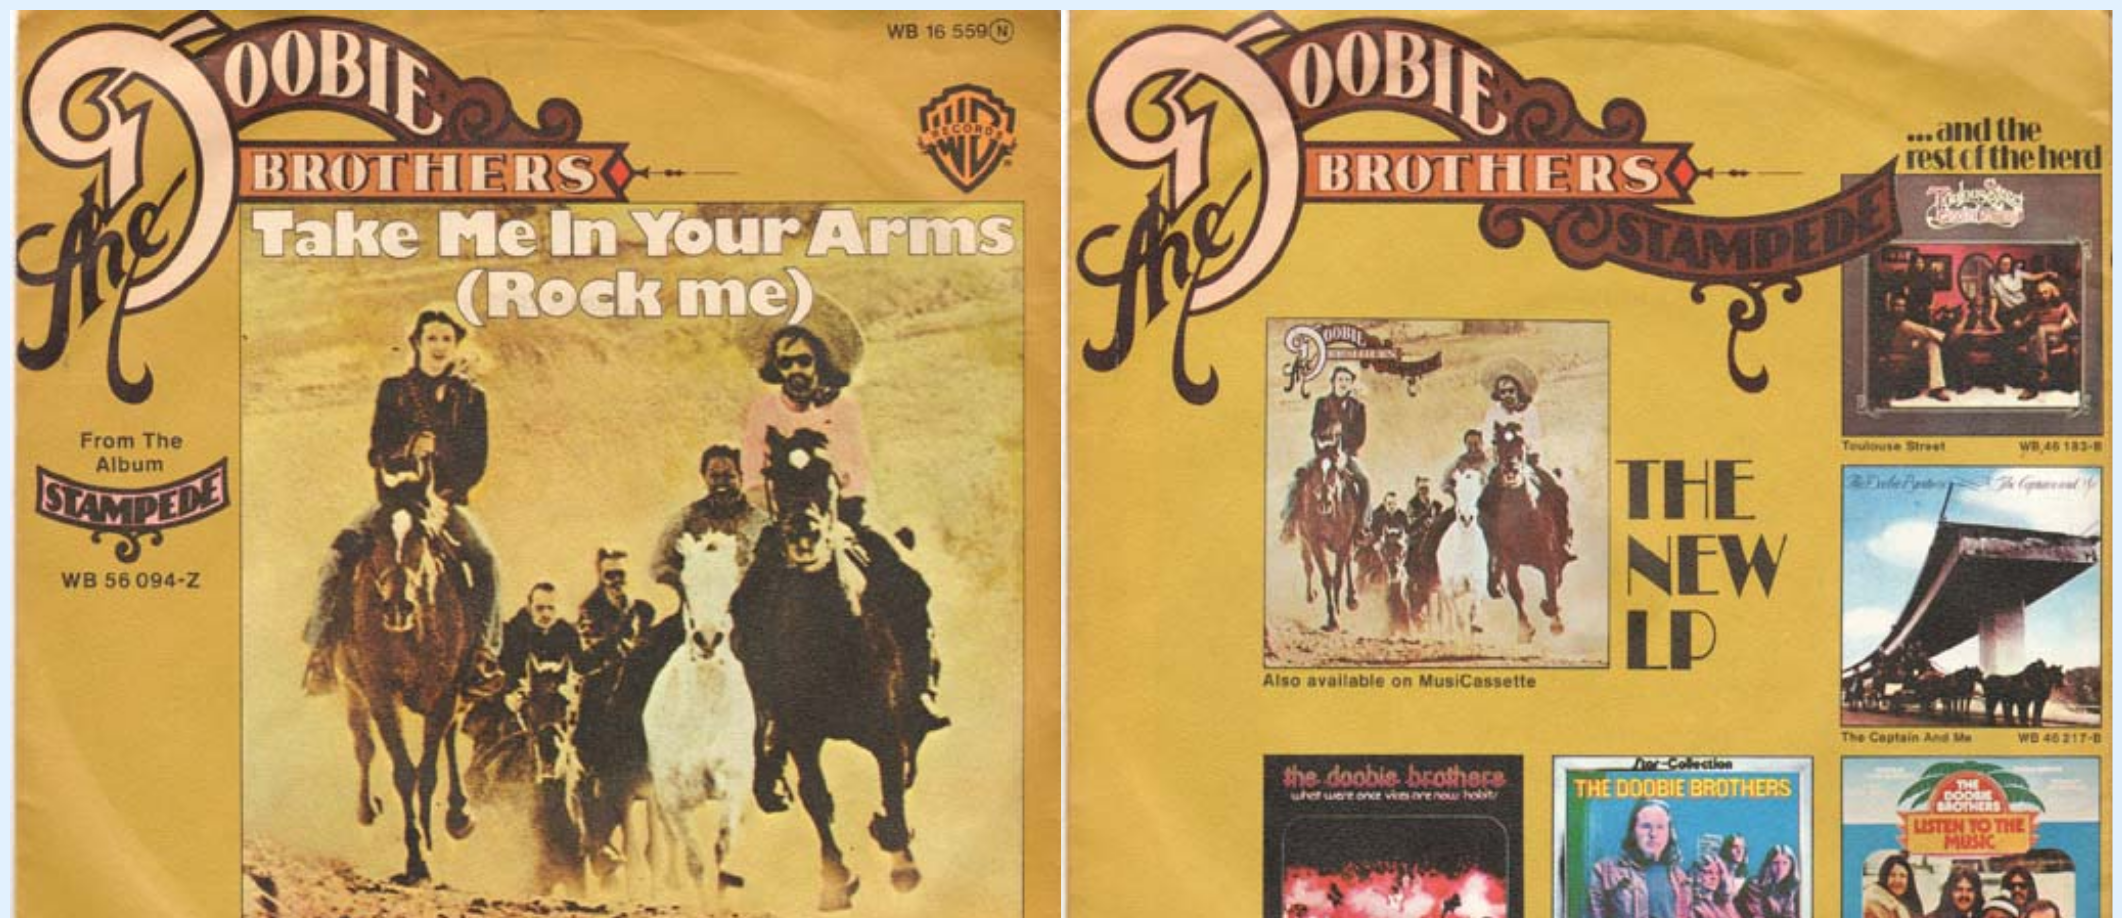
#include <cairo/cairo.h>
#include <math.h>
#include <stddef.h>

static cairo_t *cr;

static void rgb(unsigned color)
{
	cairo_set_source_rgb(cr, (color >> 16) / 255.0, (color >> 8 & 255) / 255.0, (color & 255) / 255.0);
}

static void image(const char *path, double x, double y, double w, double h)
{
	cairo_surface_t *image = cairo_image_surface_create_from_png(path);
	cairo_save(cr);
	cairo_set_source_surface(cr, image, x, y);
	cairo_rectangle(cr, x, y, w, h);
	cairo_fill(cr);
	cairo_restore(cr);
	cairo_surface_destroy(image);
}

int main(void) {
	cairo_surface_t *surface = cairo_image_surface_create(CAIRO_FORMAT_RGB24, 2122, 918);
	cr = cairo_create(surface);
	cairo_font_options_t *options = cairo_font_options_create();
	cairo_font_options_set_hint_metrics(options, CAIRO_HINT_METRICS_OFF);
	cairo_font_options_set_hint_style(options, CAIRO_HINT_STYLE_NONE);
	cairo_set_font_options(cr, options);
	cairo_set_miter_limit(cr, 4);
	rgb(0xe2f1fe);
	cairo_paint(cr);
	image("img/1.png", 10, 10, 1052, 908);
	image("img/2.png", 1061, 10, 1052, 908);
	cairo_surface_write_to_png(surface, "page.png");
	cairo_font_options_destroy(options);
	cairo_destroy(cr);
	cairo_surface_destroy(surface);
	return 0;
}
